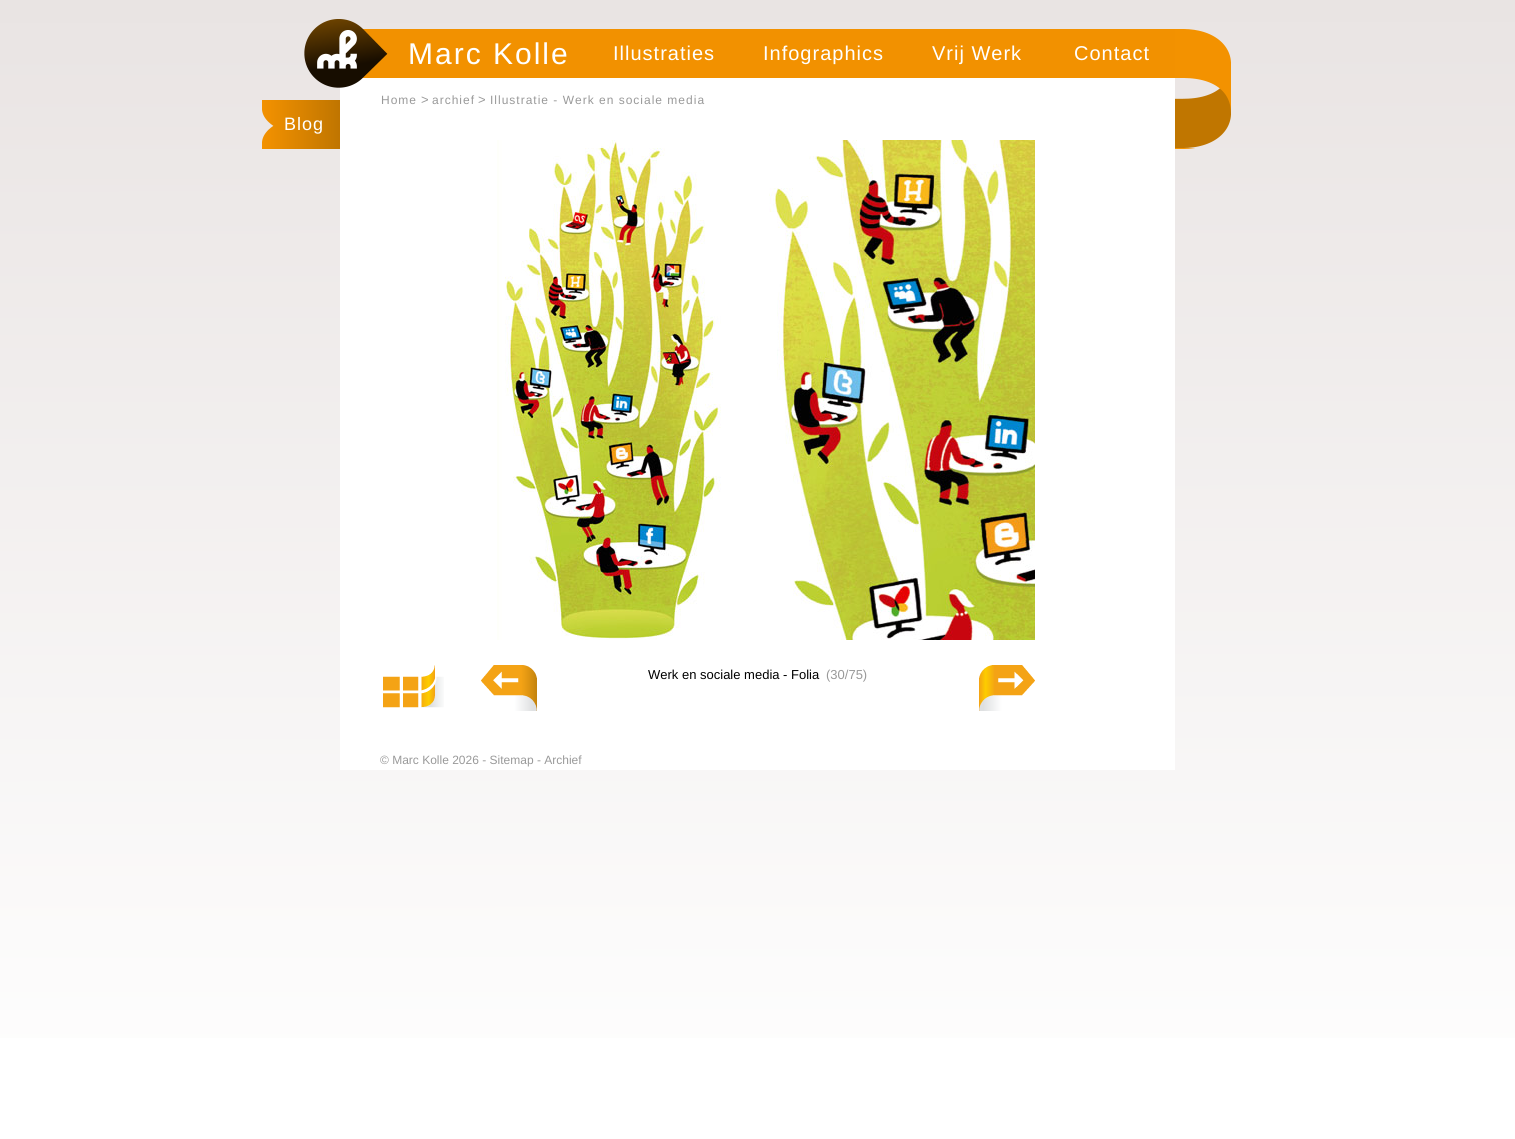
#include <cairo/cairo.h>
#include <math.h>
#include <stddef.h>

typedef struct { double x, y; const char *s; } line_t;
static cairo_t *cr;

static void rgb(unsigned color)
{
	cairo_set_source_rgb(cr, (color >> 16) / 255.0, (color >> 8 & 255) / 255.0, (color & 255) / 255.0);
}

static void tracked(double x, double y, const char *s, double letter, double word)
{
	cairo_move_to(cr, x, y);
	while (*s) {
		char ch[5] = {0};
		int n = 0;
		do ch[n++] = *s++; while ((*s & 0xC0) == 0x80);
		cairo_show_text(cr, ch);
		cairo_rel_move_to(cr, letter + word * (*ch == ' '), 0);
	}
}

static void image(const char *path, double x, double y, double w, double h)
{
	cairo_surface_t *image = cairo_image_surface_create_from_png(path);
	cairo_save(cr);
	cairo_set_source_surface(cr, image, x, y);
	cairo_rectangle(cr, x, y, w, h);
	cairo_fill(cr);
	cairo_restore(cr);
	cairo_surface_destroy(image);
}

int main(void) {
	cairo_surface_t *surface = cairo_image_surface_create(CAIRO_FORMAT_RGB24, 1515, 1139);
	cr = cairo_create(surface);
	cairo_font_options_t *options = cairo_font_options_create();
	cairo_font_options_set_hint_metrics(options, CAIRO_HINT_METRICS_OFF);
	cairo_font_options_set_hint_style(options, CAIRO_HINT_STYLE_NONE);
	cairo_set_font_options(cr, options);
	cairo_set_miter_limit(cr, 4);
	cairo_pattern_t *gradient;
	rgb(0xffffff);
	cairo_paint(cr);
	gradient = cairo_pattern_create_linear(757, 0, 758, 1139);
	cairo_pattern_add_color_stop_rgba(gradient, 0, 0.914, 0.894, 0.89, 1);
	cairo_pattern_add_color_stop_rgba(gradient, 1, 1, 1, 1, 1);
	cairo_set_source(cr, gradient);
	cairo_pattern_destroy(gradient);
	cairo_rectangle(cr, 0, 0, 1515, 1038);
	cairo_fill(cr);
	rgb(0xffffff);
	cairo_rectangle(cr, 340, 78, 835, 692);
	cairo_fill(cr);
	rgb(0xf29100);
	cairo_rectangle(cr, 362, 29, 813, 49);
	cairo_fill(cr);
	image("img/1.png", 304, 19, 84, 69);
	image("img/2.png", 1175, 29, 56, 120);
	image("img/3.png", 262, 100, 78, 49);
	image("img/4.png", 497, 140, 538, 500);
	image("img/5.png", 383, 665, 61, 43);
	image("img/6.png", 481, 665, 56, 46);
	image("img/7.png", 979, 665, 56, 46);
	cairo_select_font_face(cr, "Liberation Sans", CAIRO_FONT_SLANT_NORMAL, CAIRO_FONT_WEIGHT_NORMAL);
	cairo_set_font_size(cr, 30);
	rgb(0xffffff);
	tracked(408, 64, "Marc Kolle", 2, 0);
	cairo_set_font_size(cr, 20);
	{
		static const line_t items[] = {
			{613, 60, "Illustraties"},
			{763, 60, "Infographics"},
			{932, 60, "Vrij Werk"},
			{1074, 60, "Contact"},
		};
		for (size_t i = 0; i < sizeof items / sizeof *items; i++) {
			tracked(items[i].x, items[i].y, items[i].s, 1, 0);
		}
	}
	cairo_set_font_size(cr, 18);
	tracked(284, 130, "Blog", 1, 0);
	cairo_set_font_size(cr, 12);
	rgb(0x999999);
	tracked(381, 104, "Home", 1, 0);
	cairo_set_font_size(cr, 13);
	cairo_move_to(cr, 421, 104);
	cairo_show_text(cr, ">");
	cairo_set_font_size(cr, 12);
	tracked(432, 104, "archief", 1, 0);
	cairo_set_font_size(cr, 13);
	cairo_move_to(cr, 478, 104);
	cairo_show_text(cr, ">");
	cairo_set_font_size(cr, 12);
	tracked(490, 104, "Illustratie - Werk en sociale media", 1, 0);
	cairo_set_font_size(cr, 13);
	rgb(0x000000);
	cairo_move_to(cr, 648, 679);
	cairo_show_text(cr, "Werk en sociale media - Folia");
	rgb(0x999999);
	cairo_move_to(cr, 826, 679);
	cairo_show_text(cr, "(30/75)");
	cairo_set_font_size(cr, 12);
	cairo_move_to(cr, 380, 764);
	cairo_show_text(cr, "© Marc Kolle 2026 - Sitemap - Archief");
	cairo_surface_write_to_png(surface, "page.png");
	cairo_font_options_destroy(options);
	cairo_destroy(cr);
	cairo_surface_destroy(surface);
	return 0;
}
